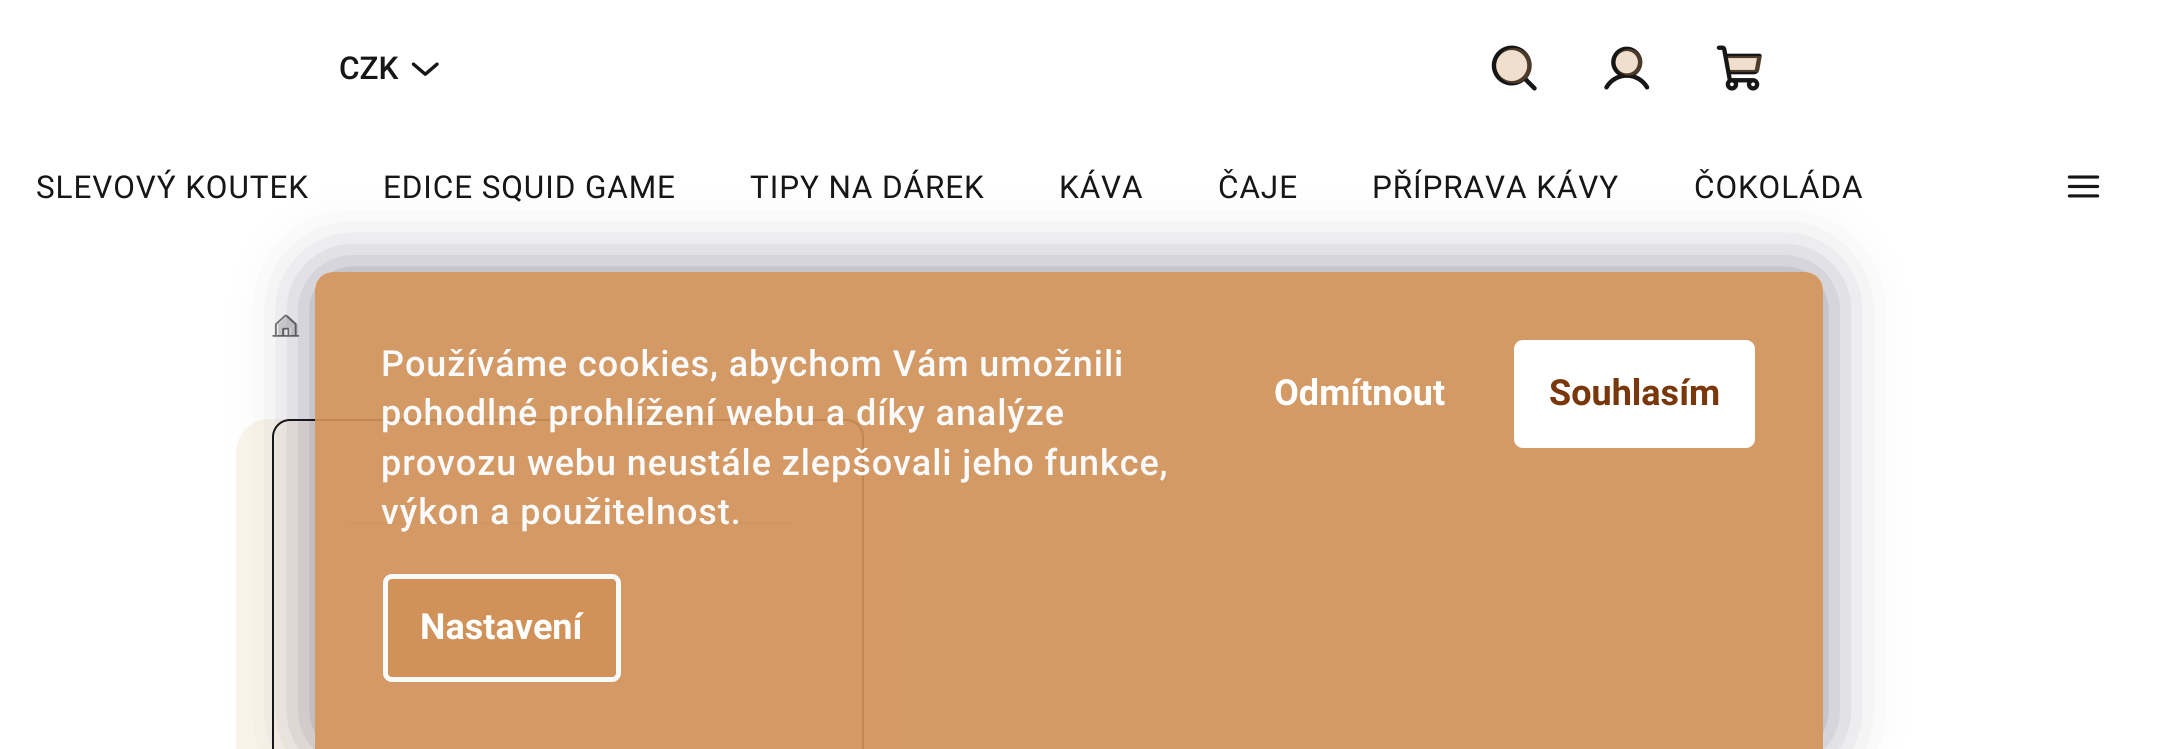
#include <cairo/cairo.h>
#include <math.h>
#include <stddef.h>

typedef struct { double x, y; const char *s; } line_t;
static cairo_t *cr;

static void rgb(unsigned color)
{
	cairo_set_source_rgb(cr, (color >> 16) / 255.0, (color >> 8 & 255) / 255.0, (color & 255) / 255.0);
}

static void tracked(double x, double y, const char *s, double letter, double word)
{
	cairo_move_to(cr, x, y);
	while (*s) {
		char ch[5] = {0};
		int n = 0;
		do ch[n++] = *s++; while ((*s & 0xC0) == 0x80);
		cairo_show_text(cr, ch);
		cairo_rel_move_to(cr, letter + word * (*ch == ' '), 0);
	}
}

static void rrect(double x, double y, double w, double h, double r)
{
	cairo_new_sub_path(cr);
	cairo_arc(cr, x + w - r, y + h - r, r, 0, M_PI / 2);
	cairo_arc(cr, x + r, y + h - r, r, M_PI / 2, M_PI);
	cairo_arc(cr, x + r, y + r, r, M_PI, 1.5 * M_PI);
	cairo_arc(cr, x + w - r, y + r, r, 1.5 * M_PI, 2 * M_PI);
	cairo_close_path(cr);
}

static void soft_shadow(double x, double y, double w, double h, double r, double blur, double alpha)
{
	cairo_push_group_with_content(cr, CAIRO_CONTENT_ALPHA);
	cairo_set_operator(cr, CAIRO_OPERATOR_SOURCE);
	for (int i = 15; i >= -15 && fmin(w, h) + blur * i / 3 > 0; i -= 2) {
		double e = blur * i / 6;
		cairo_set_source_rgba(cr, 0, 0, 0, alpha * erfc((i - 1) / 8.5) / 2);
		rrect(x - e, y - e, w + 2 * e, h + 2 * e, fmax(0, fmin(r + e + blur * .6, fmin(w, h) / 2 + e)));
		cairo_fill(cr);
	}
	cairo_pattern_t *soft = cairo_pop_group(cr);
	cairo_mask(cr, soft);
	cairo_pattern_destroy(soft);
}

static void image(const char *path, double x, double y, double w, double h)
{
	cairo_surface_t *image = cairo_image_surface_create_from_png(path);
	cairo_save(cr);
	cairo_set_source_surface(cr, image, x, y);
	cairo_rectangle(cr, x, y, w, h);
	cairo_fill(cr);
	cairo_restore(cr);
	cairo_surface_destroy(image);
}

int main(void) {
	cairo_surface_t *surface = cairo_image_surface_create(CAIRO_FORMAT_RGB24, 2167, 749);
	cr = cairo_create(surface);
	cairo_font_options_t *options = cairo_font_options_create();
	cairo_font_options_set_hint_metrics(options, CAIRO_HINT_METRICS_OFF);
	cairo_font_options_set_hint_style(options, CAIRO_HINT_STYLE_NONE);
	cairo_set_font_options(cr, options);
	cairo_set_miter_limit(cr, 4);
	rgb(0xffffff);
	cairo_paint(cr);
	image("img/1.png", 411, 62, 28, 14);
	image("img/2.png", 1491, 45, 46, 46);
	cairo_set_source_rgba(cr, 0.816, 0.573, 0.349, 0.3);
	cairo_new_path(cr);
	cairo_move_to(cr, 1514, 83.5);
	cairo_curve_to(cr, 1531, 83.5, 1538, 61.5, 1524.5, 51.5);
	cairo_curve_to(cr, 1521.5, 49, 1518, 48, 1514, 48);
	cairo_curve_to(cr, 1510, 48, 1506.5, 49, 1503.5, 51.5);
	cairo_curve_to(cr, 1490, 61.5, 1497, 83.5, 1514, 83.5);
	cairo_close_path(cr);
	cairo_fill(cr);
	image("img/3.png", 1604, 46, 46, 44);
	cairo_new_path(cr);
	cairo_move_to(cr, 1629, 75.5);
	cairo_curve_to(cr, 1646.5, 75.5, 1646.5, 49, 1629, 49);
	cairo_curve_to(cr, 1611.5, 49, 1611.5, 75.5, 1629, 75.5);
	cairo_close_path(cr);
	cairo_fill(cr);
	image("img/4.png", 1716, 45, 46, 46);
	cairo_new_path(cr);
	cairo_move_to(cr, 1730.5, 72);
	cairo_line_to(cr, 1752, 72);
	cairo_curve_to(cr, 1757.5, 72, 1758.5, 73, 1760, 67);
	cairo_line_to(cr, 1762, 56);
	cairo_line_to(cr, 1727.5, 56);
	cairo_close_path(cr);
	cairo_fill(cr);
	image("img/5.png", 2067, 175, 33, 23);
	image("img/6.png", 272, 314, 28, 23);
	image("img/7.png", 278, 315, 20, 21);
	rgb(0xfaf4eb);
	rrect(236, 419, 664, 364, 34);
	cairo_fill(cr);
	rrect(273, 420, 590, 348, 17);
	rgb(0x161616);
	cairo_stroke(cr);
	rgb(0xdadada);
	cairo_rectangle(cr, 347, 522, 445, 2);
	cairo_fill(cr);
	cairo_save(cr);
	cairo_set_fill_rule(cr, CAIRO_FILL_RULE_EVEN_ODD);
	cairo_new_path(cr);
	cairo_move_to(cr, 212, 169);
	cairo_line_to(cr, 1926, 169);
	cairo_line_to(cr, 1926, 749);
	cairo_line_to(cr, 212, 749);
	cairo_close_path(cr);
	cairo_move_to(cr, 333, 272);
	cairo_line_to(cr, 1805, 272);
	cairo_curve_to(cr, 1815, 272, 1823, 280, 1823, 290);
	cairo_line_to(cr, 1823, 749);
	cairo_line_to(cr, 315, 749);
	cairo_line_to(cr, 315, 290);
	cairo_curve_to(cr, 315, 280, 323, 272, 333, 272);
	cairo_close_path(cr);
	cairo_clip(cr);
	rgb(0x1b1939);
	soft_shadow(315, 272, 1508, 477, 18, 34, 0.5);
	cairo_restore(cr);
	cairo_set_source_rgba(cr, 0.816, 0.573, 0.349, 0.92);
	cairo_new_path(cr);
	cairo_move_to(cr, 333, 272);
	cairo_line_to(cr, 1805, 272);
	cairo_curve_to(cr, 1815, 272, 1823, 280, 1823, 290);
	cairo_line_to(cr, 1823, 749);
	cairo_line_to(cr, 315, 749);
	cairo_line_to(cr, 315, 290);
	cairo_curve_to(cr, 315, 280, 323, 272, 333, 272);
	cairo_close_path(cr);
	cairo_fill(cr);
	rgb(0xd09259);
	rrect(385.5, 576.5, 233, 103, 6.5);
	cairo_fill_preserve(cr);
	rgb(0xf8fafb);
	cairo_set_line_width(cr, 5);
	cairo_stroke(cr);
	rgb(0xffffff);
	rrect(1514, 340, 241, 108, 9);
	cairo_fill(cr);
	cairo_select_font_face(cr, "Roboto Medium", CAIRO_FONT_SLANT_NORMAL, CAIRO_FONT_WEIGHT_NORMAL);
	cairo_set_font_size(cr, 31.5);
	rgb(0x161616);
	cairo_move_to(cr, 339, 79);
	cairo_show_text(cr, "CZK");
	cairo_select_font_face(cr, "Roboto", CAIRO_FONT_SLANT_NORMAL, CAIRO_FONT_WEIGHT_NORMAL);
	{
		static const line_t items[] = {
			{36, 198, "SLEVOVÝ KOUTEK"},
			{383, 198, "EDICE SQUID GAME"},
			{750, 198, "TIPY NA DÁREK"},
			{1059, 198, "KÁVA"},
			{1218, 198, "ČAJE"},
			{1372, 198, "PŘÍPRAVA KÁVY"},
			{1694, 198, "ČOKOLÁDA"},
		};
		for (size_t i = 0; i < sizeof items / sizeof *items; i++) {
			tracked(items[i].x, items[i].y, items[i].s, 0.9, 0);
		}
	}
	cairo_select_font_face(cr, "Roboto Medium", CAIRO_FONT_SLANT_NORMAL, CAIRO_FONT_WEIGHT_NORMAL);
	cairo_set_font_size(cr, 36);
	rgb(0xf8fafb);
	{
		static const line_t items[] = {
			{381, 376, "Používáme cookies, abychom Vám umožnili"},
			{381, 425, "pohodlné prohlížení webu a díky analýze"},
			{381, 475, "provozu webu neustále zlepšovali jeho funkce,"},
			{381, 524, "výkon a použitelnost."},
		};
		for (size_t i = 0; i < sizeof items / sizeof *items; i++) {
			tracked(items[i].x, items[i].y, items[i].s, 0.9, 0);
		}
	}
	cairo_select_font_face(cr, "Roboto", CAIRO_FONT_SLANT_NORMAL, CAIRO_FONT_WEIGHT_BOLD);
	rgb(0xffffff);
	cairo_move_to(cr, 420, 639);
	cairo_show_text(cr, "Nastavení");
	cairo_move_to(cr, 1274, 405);
	cairo_show_text(cr, "Odmítnout");
	rgb(0x78380c);
	cairo_move_to(cr, 1549, 405);
	cairo_show_text(cr, "Souhlasím");
	cairo_surface_write_to_png(surface, "page.png");
	cairo_font_options_destroy(options);
	cairo_destroy(cr);
	cairo_surface_destroy(surface);
	return 0;
}
